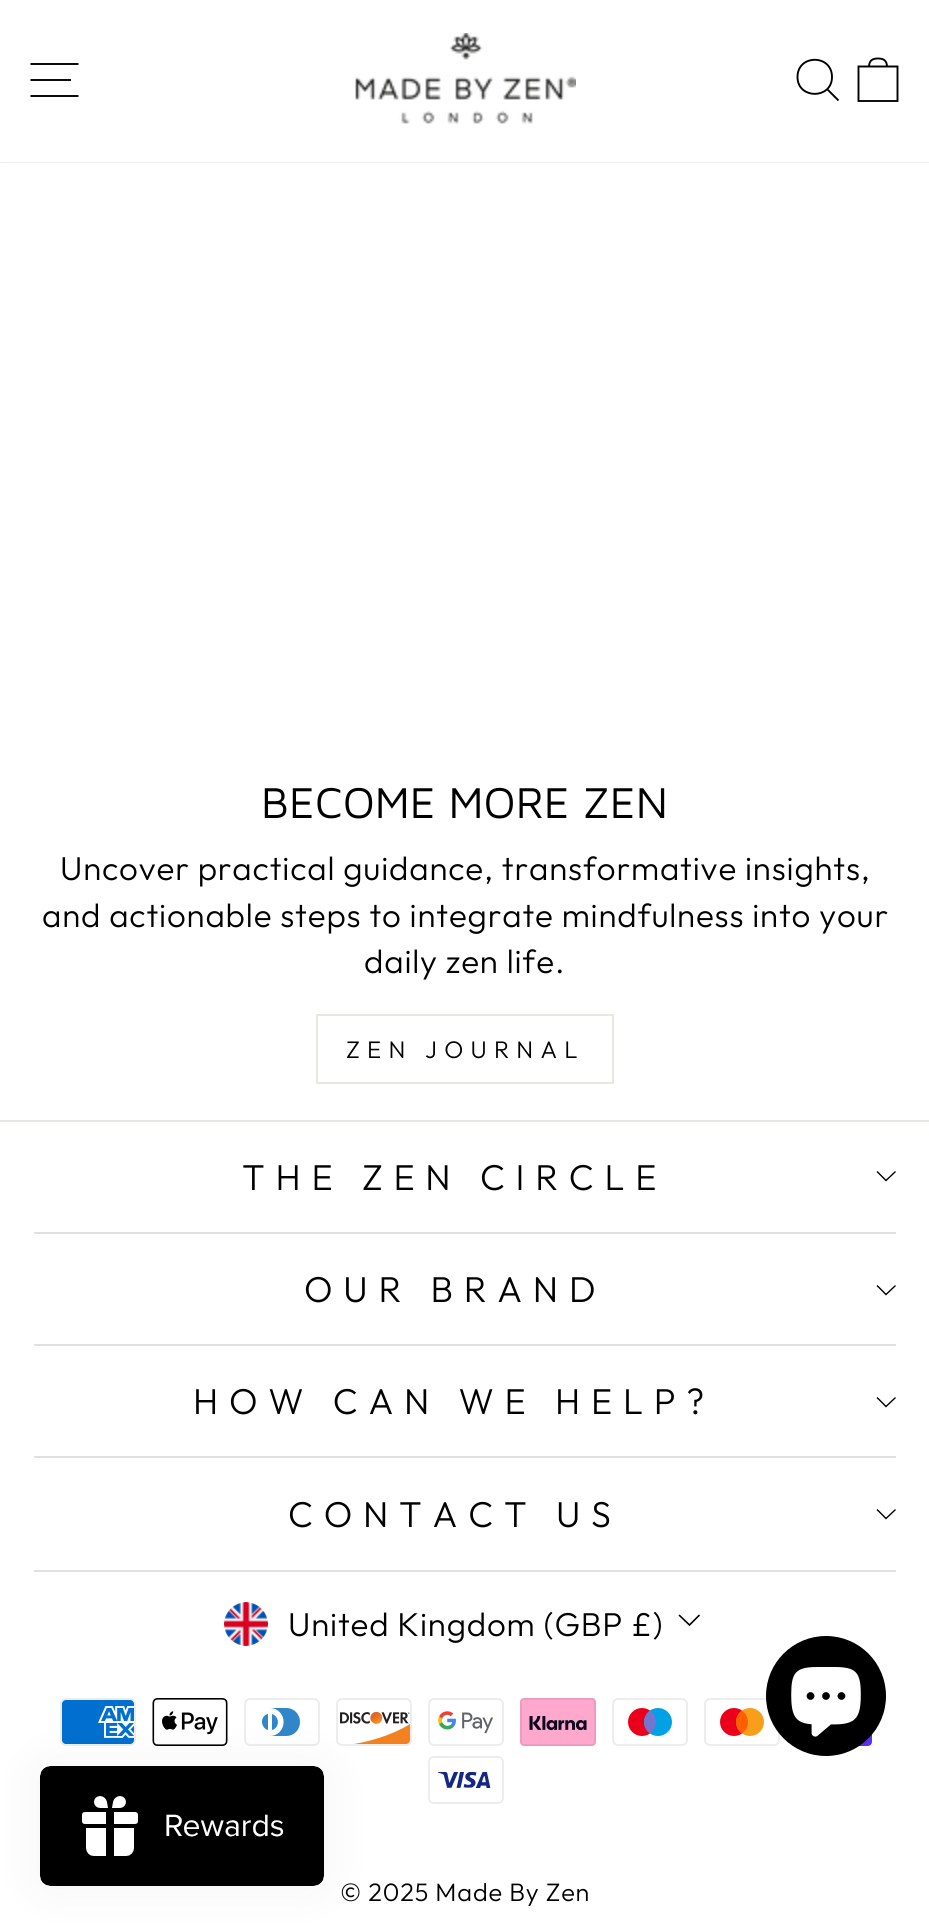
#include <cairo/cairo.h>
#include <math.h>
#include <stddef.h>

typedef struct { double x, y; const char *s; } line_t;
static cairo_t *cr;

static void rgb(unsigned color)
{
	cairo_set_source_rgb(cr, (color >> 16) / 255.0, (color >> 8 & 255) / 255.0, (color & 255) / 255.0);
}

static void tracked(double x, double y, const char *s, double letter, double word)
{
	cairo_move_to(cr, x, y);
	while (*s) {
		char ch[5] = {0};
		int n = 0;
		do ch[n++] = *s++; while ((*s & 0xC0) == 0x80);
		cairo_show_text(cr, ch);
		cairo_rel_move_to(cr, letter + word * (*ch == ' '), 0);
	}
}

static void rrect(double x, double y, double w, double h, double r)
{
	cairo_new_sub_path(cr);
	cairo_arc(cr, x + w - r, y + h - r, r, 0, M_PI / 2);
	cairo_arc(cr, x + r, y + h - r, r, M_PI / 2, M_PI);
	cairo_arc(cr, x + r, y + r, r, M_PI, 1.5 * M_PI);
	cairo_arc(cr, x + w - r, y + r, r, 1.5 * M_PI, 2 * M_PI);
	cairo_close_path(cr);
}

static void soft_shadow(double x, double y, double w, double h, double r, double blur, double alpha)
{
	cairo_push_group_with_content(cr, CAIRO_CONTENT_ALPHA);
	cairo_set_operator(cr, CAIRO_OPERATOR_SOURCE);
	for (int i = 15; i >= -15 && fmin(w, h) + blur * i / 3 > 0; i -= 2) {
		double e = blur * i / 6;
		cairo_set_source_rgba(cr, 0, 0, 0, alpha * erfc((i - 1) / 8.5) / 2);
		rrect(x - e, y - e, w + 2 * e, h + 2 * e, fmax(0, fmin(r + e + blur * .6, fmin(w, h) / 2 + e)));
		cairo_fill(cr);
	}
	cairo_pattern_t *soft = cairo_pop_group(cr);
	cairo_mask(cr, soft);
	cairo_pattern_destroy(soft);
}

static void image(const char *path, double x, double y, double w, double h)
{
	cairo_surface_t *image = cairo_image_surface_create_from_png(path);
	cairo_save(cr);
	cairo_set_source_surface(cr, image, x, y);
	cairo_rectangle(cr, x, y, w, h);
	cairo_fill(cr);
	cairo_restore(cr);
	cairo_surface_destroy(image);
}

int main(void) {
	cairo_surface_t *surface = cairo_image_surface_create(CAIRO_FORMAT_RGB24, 929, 1925);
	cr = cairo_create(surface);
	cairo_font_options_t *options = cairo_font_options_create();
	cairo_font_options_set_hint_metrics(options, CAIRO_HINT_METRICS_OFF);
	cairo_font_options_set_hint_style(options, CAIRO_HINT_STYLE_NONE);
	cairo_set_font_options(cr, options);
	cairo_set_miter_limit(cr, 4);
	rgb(0xffffff);
	cairo_paint(cr);
	cairo_save(cr);
	cairo_rectangle(cr, 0, 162, 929, 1);
	cairo_clip(cr);
	rgb(0x000000);
	soft_shadow(0, 0, 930, 162, 0, 1, 0.2);
	cairo_restore(cr);
	cairo_new_path(cr);
	cairo_move_to(cr, 30.5, 64);
	cairo_line_to(cr, 78.5, 64);
	cairo_move_to(cr, 30.5, 80);
	cairo_line_to(cr, 71, 80);
	cairo_move_to(cr, 30.5, 96);
	cairo_line_to(cr, 78.5, 96);
	rgb(0x000000);
	cairo_set_line_width(cr, 1.9);
	cairo_stroke(cr);
	image("img/1.png", 355, 33, 221, 91);
	cairo_new_path(cr);
	cairo_move_to(cr, 832, 77);
	cairo_curve_to(cr, 832, 99.5, 797.5, 99.5, 797.5, 77);
	cairo_curve_to(cr, 797.5, 54, 832, 54, 832, 77);
	cairo_close_path(cr);
	cairo_move_to(cr, 838.5, 100.5);
	cairo_line_to(cr, 827.5, 89.5);
	cairo_stroke(cr);
	cairo_new_path(cr);
	cairo_move_to(cr, 858.5, 66.5);
	cairo_line_to(cr, 897.5, 66.5);
	cairo_line_to(cr, 897.5, 101);
	cairo_line_to(cr, 858.5, 101);
	cairo_close_path(cr);
	cairo_move_to(cr, 869, 67);
	cairo_curve_to(cr, 869, 60, 873, 58.5, 878, 58.5);
	cairo_curve_to(cr, 883, 58.5, 887, 60, 887, 67);
	cairo_stroke(cr);
	cairo_rectangle(cr, 317, 1015, 296, 68);
	rgb(0xe8e8e1);
	cairo_set_line_width(cr, 2);
	cairo_stroke(cr);
	cairo_rectangle(cr, 0, 1120, 929, 2);
	cairo_fill(cr);
	cairo_new_path(cr);
	cairo_move_to(cr, 877, 1171.5);
	cairo_line_to(cr, 886, 1180.5);
	cairo_line_to(cr, 895.5, 1171.5);
	rgb(0x000000);
	cairo_set_line_width(cr, 1.4);
	cairo_stroke(cr);
	rgb(0xe0e0e0);
	cairo_rectangle(cr, 34, 1232, 862, 2);
	cairo_fill(cr);
	cairo_new_path(cr);
	cairo_move_to(cr, 877, 1285.5);
	cairo_line_to(cr, 886, 1294.5);
	cairo_line_to(cr, 895.5, 1285.5);
	rgb(0x000000);
	cairo_stroke(cr);
	rgb(0xe0e0e0);
	cairo_rectangle(cr, 34, 1344, 862, 2);
	cairo_fill(cr);
	cairo_new_path(cr);
	cairo_move_to(cr, 877, 1397.5);
	cairo_line_to(cr, 886, 1406.5);
	cairo_line_to(cr, 895.5, 1397.5);
	rgb(0x000000);
	cairo_stroke(cr);
	rgb(0xe0e0e0);
	cairo_rectangle(cr, 34, 1456, 862, 2);
	cairo_fill(cr);
	cairo_new_path(cr);
	cairo_move_to(cr, 877, 1509.5);
	cairo_line_to(cr, 886, 1518.5);
	cairo_line_to(cr, 895.5, 1509.5);
	rgb(0x000000);
	cairo_stroke(cr);
	rgb(0xe0e0e0);
	cairo_rectangle(cr, 34, 1570, 862, 2);
	cairo_fill(cr);
	image("img/2.png", 224, 1602, 44, 44);
	cairo_new_path(cr);
	cairo_move_to(cr, 679, 1615);
	cairo_line_to(cr, 689.5, 1625);
	cairo_line_to(cr, 699.5, 1615);
	rgb(0x000000);
	cairo_set_line_width(cr, 1.6);
	cairo_stroke(cr);
	image("img/3.png", 60, 1698, 76, 48);
	image("img/4.png", 152, 1698, 76, 48);
	image("img/5.png", 244, 1698, 76, 48);
	image("img/6.png", 336, 1698, 76, 48);
	image("img/7.png", 428, 1698, 76, 48);
	image("img/8.png", 520, 1698, 76, 48);
	image("img/9.png", 612, 1698, 76, 48);
	image("img/10.png", 704, 1698, 76, 48);
	image("img/11.png", 859, 1734, 13, 12);
	image("img/12.png", 428, 1756, 76, 48);
	rgb(0x000000);
	soft_shadow(40, 1766, 284, 120, 10, 25, 0.05);
	image("img/13.png", 40, 1766, 284, 120);
	rgb(0x000000);
	cairo_arc(cr, 826, 1696, 60, 0, 2 * M_PI);
	cairo_fill(cr);
	image("img/14.png", 791, 1667, 70, 70);
	cairo_select_font_face(cr, "Maven Pro", CAIRO_FONT_SLANT_NORMAL, CAIRO_FONT_WEIGHT_NORMAL);
	cairo_set_font_size(cr, 44.6);
	cairo_move_to(cr, 261, 818);
	cairo_show_text(cr, "BECOME MORE ZEN");
	cairo_select_font_face(cr, "Outfit Light", CAIRO_FONT_SLANT_NORMAL, CAIRO_FONT_WEIGHT_NORMAL);
	cairo_set_font_size(cr, 33.1);
	{
		static const line_t items[] = {
			{60, 880, "Uncover practical guidance, transformative insights,"},
			{42, 927, "and actionable steps to integrate mindfulness into your"},
			{364, 973, "daily zen life."},
		};
		for (size_t i = 0; i < sizeof items / sizeof *items; i++) {
			tracked(items[i].x, items[i].y, items[i].s, 0.83, 0);
		}
	}
	cairo_set_font_size(cr, 24);
	tracked(346, 1058, "ZEN JOURNAL", 7.25, 0);
	cairo_set_font_size(cr, 36);
	{
		static const line_t items[] = {
			{242, 1190, "THE ZEN CIRCLE"},
			{304, 1302, "OUR BRAND"},
			{193, 1414, "HOW CAN WE HELP?"},
			{288, 1527, "CONTACT US"},
		};
		for (size_t i = 0; i < sizeof items / sizeof *items; i++) {
			tracked(items[i].x, items[i].y, items[i].s, 10.75, 0);
		}
	}
	cairo_set_font_size(cr, 33.1);
	tracked(288, 1636, "United Kingdom (GBP £)", 0.83, 0);
	cairo_set_font_size(cr, 25.25);
	tracked(340, 1901, "© 2025 Made By Zen", 0.83, 0);
	cairo_surface_write_to_png(surface, "page.png");
	cairo_font_options_destroy(options);
	cairo_destroy(cr);
	cairo_surface_destroy(surface);
	return 0;
}
